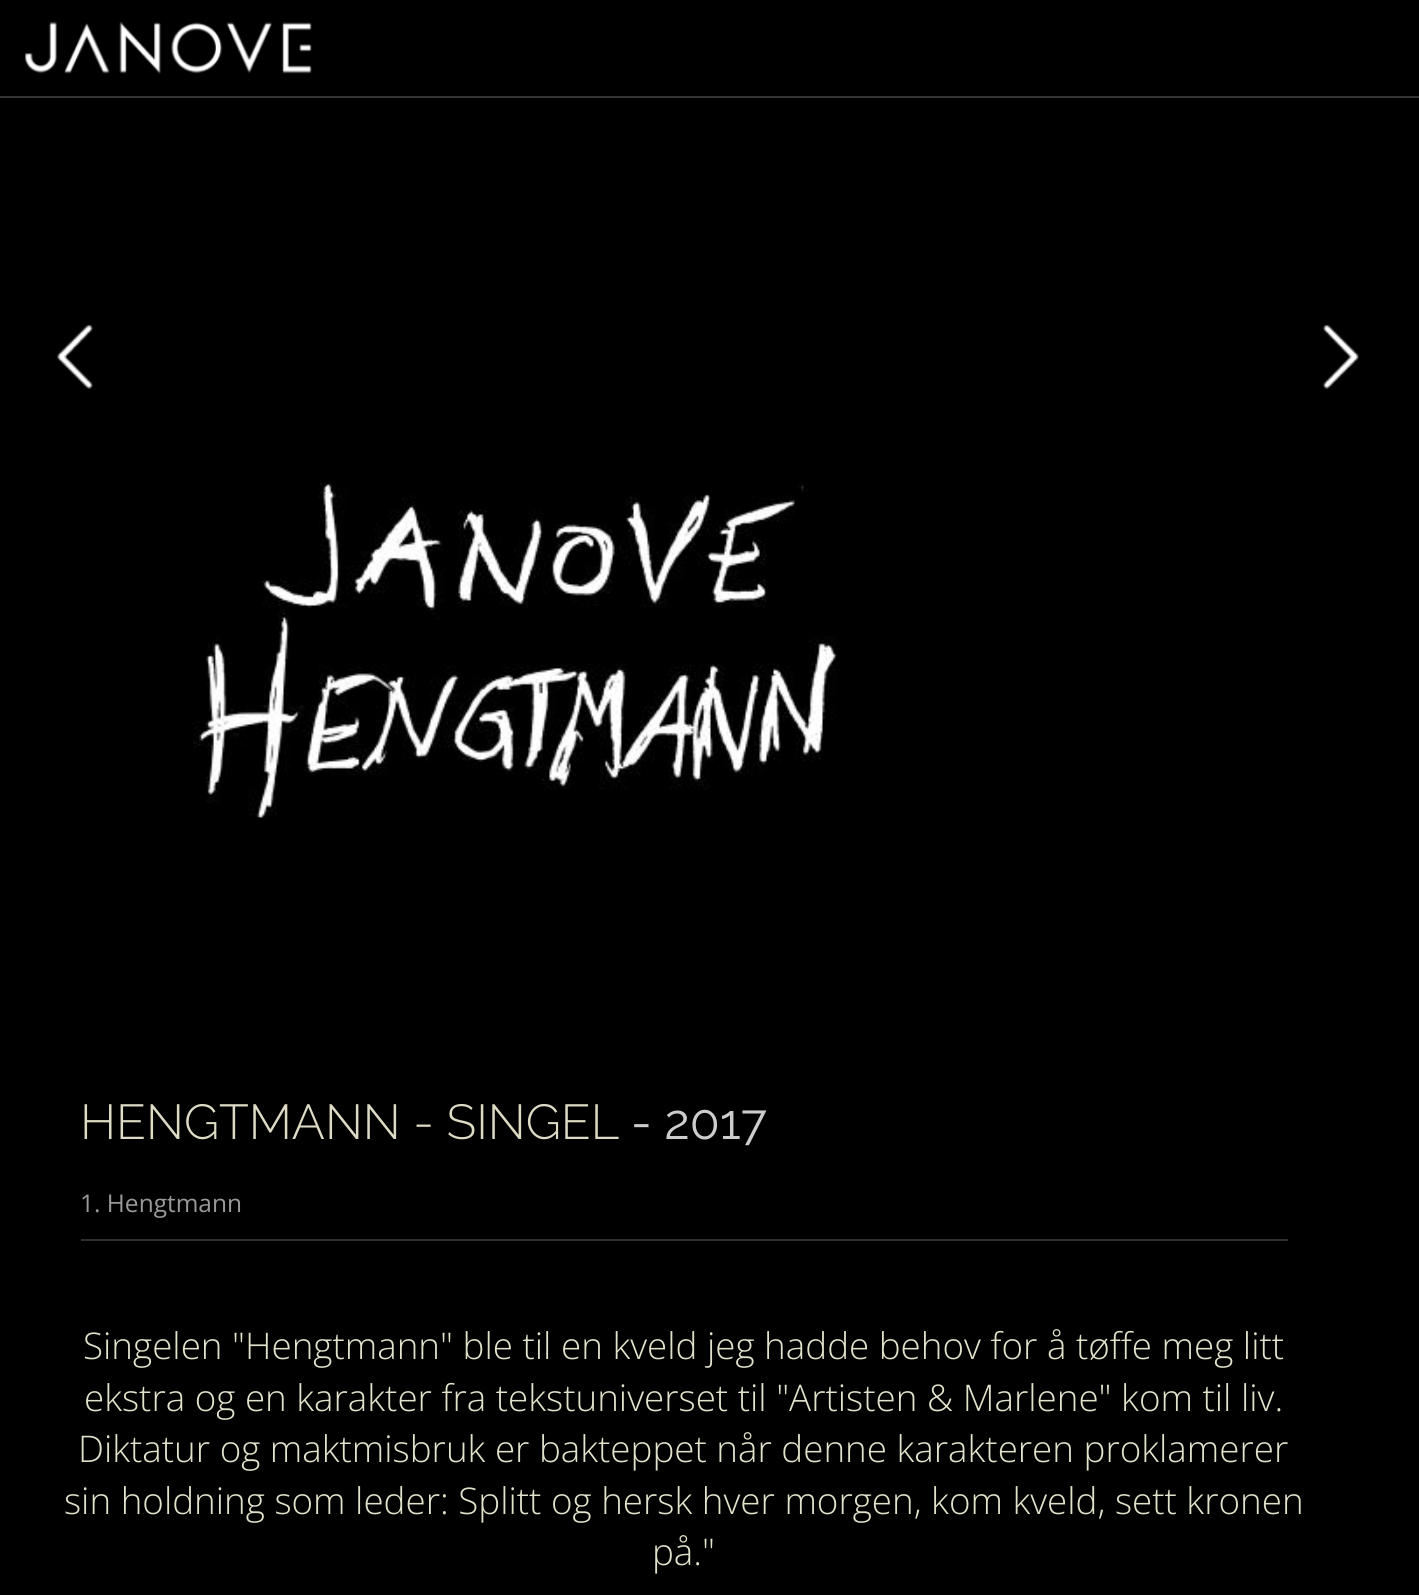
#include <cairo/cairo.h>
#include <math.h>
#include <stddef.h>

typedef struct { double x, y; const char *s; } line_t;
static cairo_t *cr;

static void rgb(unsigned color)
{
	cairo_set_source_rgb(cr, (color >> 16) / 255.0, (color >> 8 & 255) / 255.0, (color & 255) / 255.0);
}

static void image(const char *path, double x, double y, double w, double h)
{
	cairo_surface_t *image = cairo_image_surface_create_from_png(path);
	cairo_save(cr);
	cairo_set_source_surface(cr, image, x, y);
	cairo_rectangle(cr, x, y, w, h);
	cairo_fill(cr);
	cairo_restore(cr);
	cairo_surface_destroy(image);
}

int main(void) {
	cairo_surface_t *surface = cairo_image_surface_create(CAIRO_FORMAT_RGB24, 1419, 1595);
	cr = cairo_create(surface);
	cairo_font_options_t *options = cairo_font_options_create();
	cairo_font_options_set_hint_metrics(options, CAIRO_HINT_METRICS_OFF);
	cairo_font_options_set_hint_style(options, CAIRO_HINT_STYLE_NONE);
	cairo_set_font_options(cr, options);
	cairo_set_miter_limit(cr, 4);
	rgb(0x000000);
	cairo_paint(cr);
	rgb(0x333333);
	cairo_rectangle(cr, 0, 96, 1419, 2);
	cairo_fill(cr);
	image("img/1.png", 24, 21, 288, 53);
	image("img/2.png", 57, 325, 37, 64);
	image("img/3.png", 1322, 325, 37, 64);
	image("img/4.png", 193, 481, 644, 337);
	rgb(0x2e2e2e);
	cairo_rectangle(cr, 81, 1239, 1207, 2);
	cairo_fill(cr);
	cairo_select_font_face(cr, "Raleway Light", CAIRO_FONT_SLANT_NORMAL, CAIRO_FONT_WEIGHT_NORMAL);
	cairo_set_font_size(cr, 49);
	rgb(0xdedbc4);
	cairo_move_to(cr, 80, 1139);
	cairo_show_text(cr, "HENGTMANN - SINGEL");
	cairo_select_font_face(cr, "Raleway", CAIRO_FONT_SLANT_NORMAL, CAIRO_FONT_WEIGHT_NORMAL);
	rgb(0xcccccc);
	cairo_move_to(cr, 631, 1139);
	cairo_show_text(cr, "- 2017");
	cairo_select_font_face(cr, "Open Sans", CAIRO_FONT_SLANT_NORMAL, CAIRO_FONT_WEIGHT_NORMAL);
	cairo_set_font_size(cr, 24.5);
	rgb(0x999999);
	cairo_move_to(cr, 80, 1212);
	cairo_show_text(cr, "1. Hengtmann");
	cairo_select_font_face(cr, "Open Sans Light", CAIRO_FONT_SLANT_NORMAL, CAIRO_FONT_WEIGHT_NORMAL);
	cairo_set_font_size(cr, 36.75);
	rgb(0xe2e2ca);
	{
		static const line_t items[] = {
			{83, 1359, "Singelen \"Hengtmann\" ble til en kveld jeg hadde behov for å tøffe meg litt"},
			{84, 1411, "ekstra og en karakter fra tekstuniverset til \"Artisten & Marlene\" kom til liv."},
			{78, 1462, "Diktatur og maktmisbruk er bakteppet når denne karakteren proklamerer"},
			{64, 1514, "sin holdning som leder: Splitt og hersk hver morgen, kom kveld, sett kronen"},
			{652, 1565, "på.\""},
		};
		for (size_t i = 0; i < sizeof items / sizeof *items; i++) {
			cairo_move_to(cr, items[i].x, items[i].y);
			cairo_show_text(cr, items[i].s);
		}
	}
	cairo_surface_write_to_png(surface, "page.png");
	cairo_font_options_destroy(options);
	cairo_destroy(cr);
	cairo_surface_destroy(surface);
	return 0;
}
